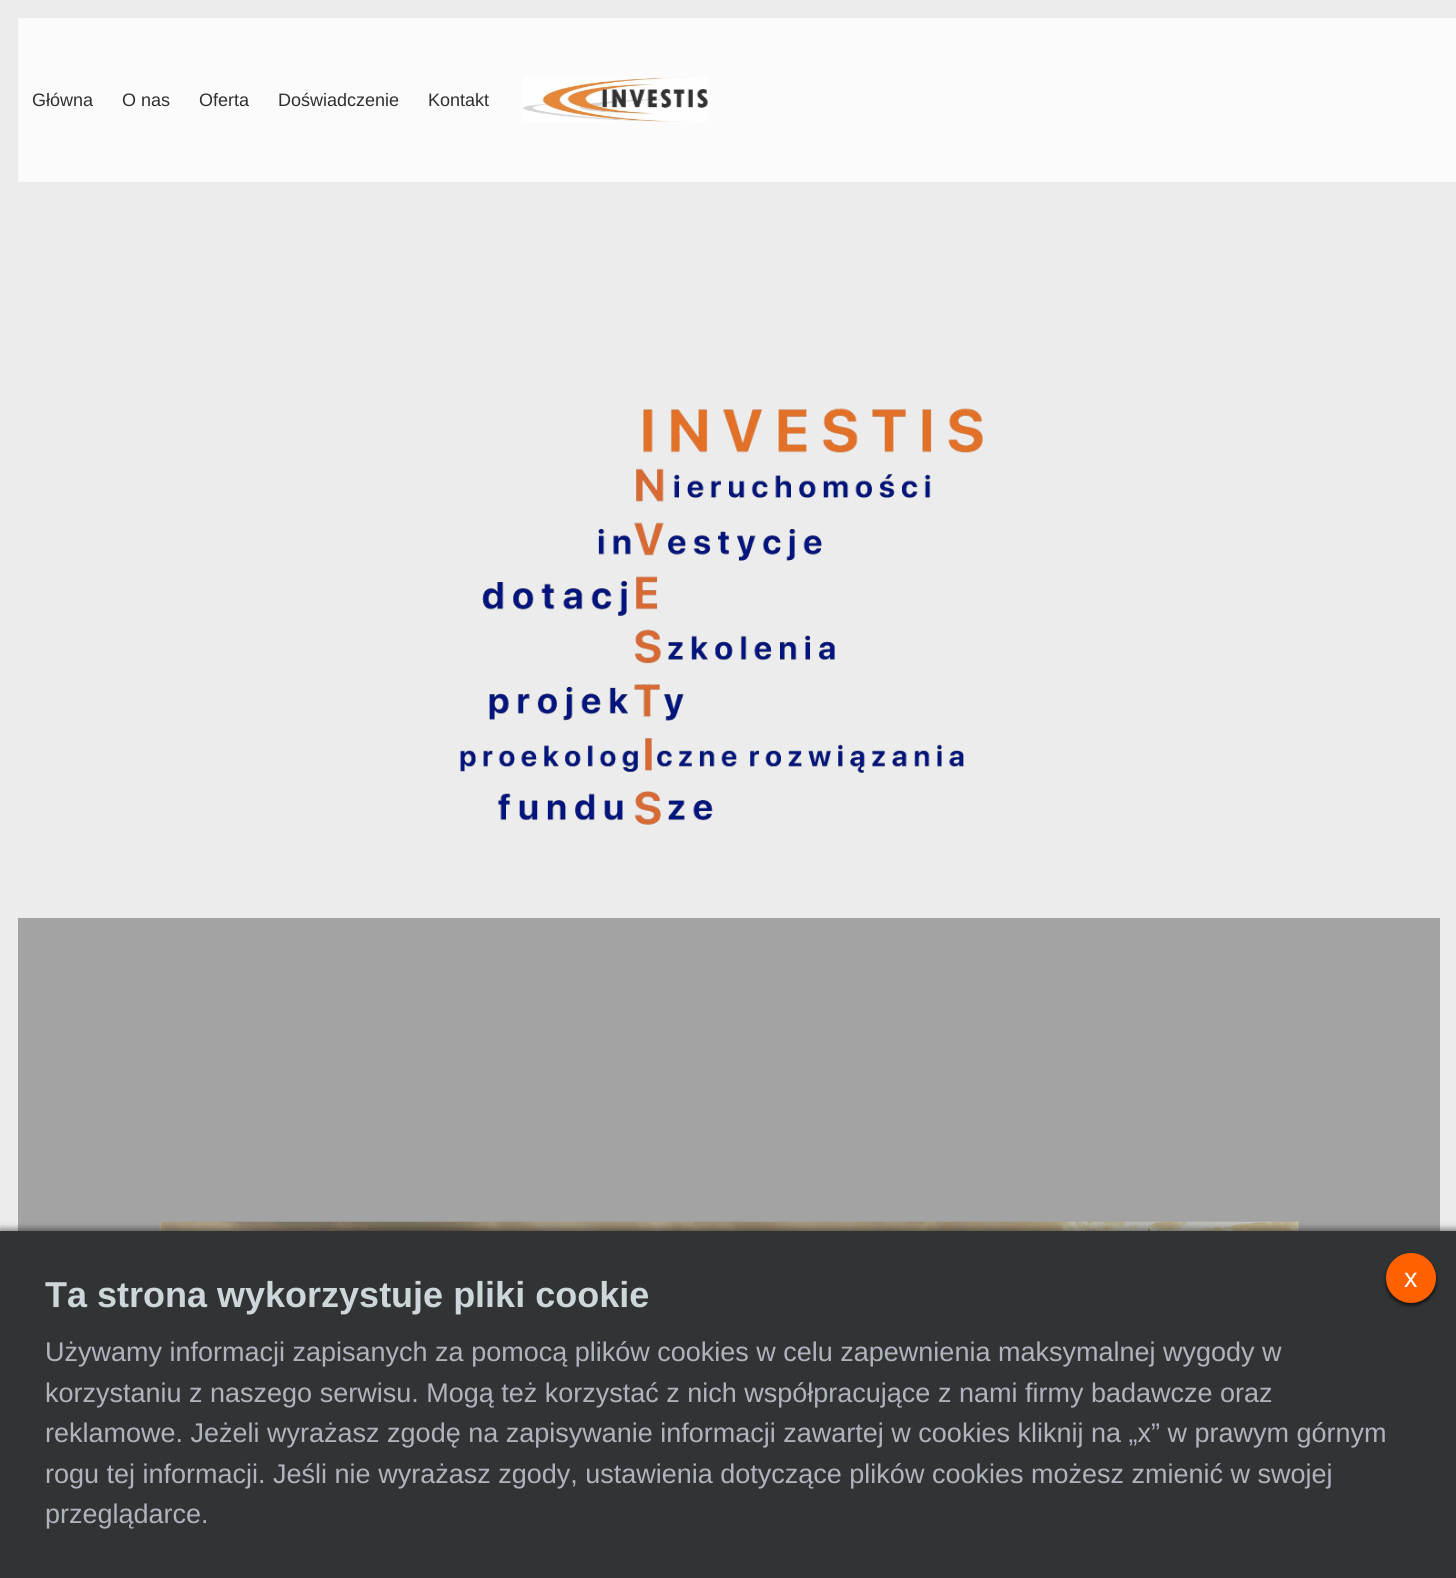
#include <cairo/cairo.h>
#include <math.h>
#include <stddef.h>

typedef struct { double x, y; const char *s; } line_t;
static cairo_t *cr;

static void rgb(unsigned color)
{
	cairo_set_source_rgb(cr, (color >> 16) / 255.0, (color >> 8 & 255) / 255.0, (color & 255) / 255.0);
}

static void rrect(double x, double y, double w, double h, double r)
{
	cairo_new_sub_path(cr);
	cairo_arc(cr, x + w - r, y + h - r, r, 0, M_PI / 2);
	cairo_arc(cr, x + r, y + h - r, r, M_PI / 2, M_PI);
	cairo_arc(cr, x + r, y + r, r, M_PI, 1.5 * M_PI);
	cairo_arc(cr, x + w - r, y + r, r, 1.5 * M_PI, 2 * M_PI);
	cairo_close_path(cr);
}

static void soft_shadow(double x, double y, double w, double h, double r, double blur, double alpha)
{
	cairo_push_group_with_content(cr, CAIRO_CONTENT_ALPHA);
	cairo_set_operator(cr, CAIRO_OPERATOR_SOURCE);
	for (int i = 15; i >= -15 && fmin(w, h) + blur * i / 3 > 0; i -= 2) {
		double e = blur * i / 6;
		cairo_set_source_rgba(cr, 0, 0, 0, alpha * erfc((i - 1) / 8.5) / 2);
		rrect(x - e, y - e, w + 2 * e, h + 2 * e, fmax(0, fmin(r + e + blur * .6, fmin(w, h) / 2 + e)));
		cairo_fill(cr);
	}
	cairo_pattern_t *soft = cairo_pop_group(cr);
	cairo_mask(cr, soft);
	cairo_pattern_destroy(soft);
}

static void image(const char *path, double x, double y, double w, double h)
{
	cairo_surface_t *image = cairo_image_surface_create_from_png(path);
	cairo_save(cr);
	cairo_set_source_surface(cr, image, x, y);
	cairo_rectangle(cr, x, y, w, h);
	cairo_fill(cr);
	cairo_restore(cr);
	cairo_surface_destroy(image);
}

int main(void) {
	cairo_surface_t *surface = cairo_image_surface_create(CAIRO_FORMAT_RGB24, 1456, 1578);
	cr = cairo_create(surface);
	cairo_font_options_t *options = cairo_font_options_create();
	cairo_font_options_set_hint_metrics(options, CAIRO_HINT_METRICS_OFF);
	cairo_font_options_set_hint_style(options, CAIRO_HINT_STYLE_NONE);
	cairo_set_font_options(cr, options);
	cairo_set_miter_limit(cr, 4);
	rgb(0xececec);
	cairo_paint(cr);
	rgb(0xfbfbfb);
	cairo_rectangle(cr, 18, 18, 1438, 164);
	cairo_fill(cr);
	image("img/1.png", 523, 77, 185, 45);
	image("img/2.png", 460, 408, 523, 417);
	rgb(0xa3a3a3);
	cairo_rectangle(cr, 18, 918, 1422, 313);
	cairo_fill(cr);
	image("img/3.png", 159, 1221, 1140, 10);
	rgb(0x000000);
	soft_shadow(0, 1229, 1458, 348, 0, 3.5, 0.5);
	rgb(0x323334);
	cairo_rectangle(cr, 0, 1231, 1456, 347);
	cairo_fill(cr);
	rgb(0x000000);
	soft_shadow(1386, 1256, 50, 49, 24.5, 2, 0.75);
	rgb(0xff6000);
	cairo_arc(cr, 1411, 1278, 25, 0, 2 * M_PI);
	cairo_fill(cr);
	cairo_select_font_face(cr, "Liberation Sans", CAIRO_FONT_SLANT_NORMAL, CAIRO_FONT_WEIGHT_NORMAL);
	cairo_set_font_size(cr, 18);
	rgb(0x2f2f2f);
	{
		static const line_t items[] = {
			{32, 106, "Główna"},
			{122, 106, "O nas"},
			{199, 106, "Oferta"},
			{278, 106, "Doświadczenie"},
			{428, 106, "Kontakt"},
		};
		for (size_t i = 0; i < sizeof items / sizeof *items; i++) {
			cairo_move_to(cr, items[i].x, items[i].y);
			cairo_show_text(cr, items[i].s);
		}
	}
	cairo_select_font_face(cr, "Liberation Sans", CAIRO_FONT_SLANT_NORMAL, CAIRO_FONT_WEIGHT_BOLD);
	cairo_set_font_size(cr, 36);
	rgb(0xcdd7da);
	cairo_move_to(cr, 45, 1307);
	cairo_show_text(cr, "Ta strona wykorzystuje pliki cookie");
	cairo_select_font_face(cr, "Liberation Sans", CAIRO_FONT_SLANT_NORMAL, CAIRO_FONT_WEIGHT_NORMAL);
	cairo_set_font_size(cr, 27);
	rgb(0xffffff);
	cairo_move_to(cr, 1404, 1287);
	cairo_show_text(cr, "x");
	rgb(0xafb4bc);
	{
		static const line_t items[] = {
			{45, 1361, "Używamy informacji zapisanych za pomocą plików cookies w celu zapewnienia maksymalnej wygody w"},
			{45, 1402, "korzystaniu z naszego serwisu. Mogą też korzystać z nich współpracujące z nami firmy badawcze oraz"},
			{45, 1442, "reklamowe. Jeżeli wyrażasz zgodę na zapisywanie informacji zawartej w cookies kliknij na „x” w prawym górnym"},
			{45, 1483, "rogu tej informacji. Jeśli nie wyrażasz zgody, ustawienia dotyczące plików cookies możesz zmienić w swojej"},
			{45, 1523, "przeglądarce."},
		};
		for (size_t i = 0; i < sizeof items / sizeof *items; i++) {
			cairo_move_to(cr, items[i].x, items[i].y);
			cairo_show_text(cr, items[i].s);
		}
	}
	cairo_surface_write_to_png(surface, "page.png");
	cairo_font_options_destroy(options);
	cairo_destroy(cr);
	cairo_surface_destroy(surface);
	return 0;
}
